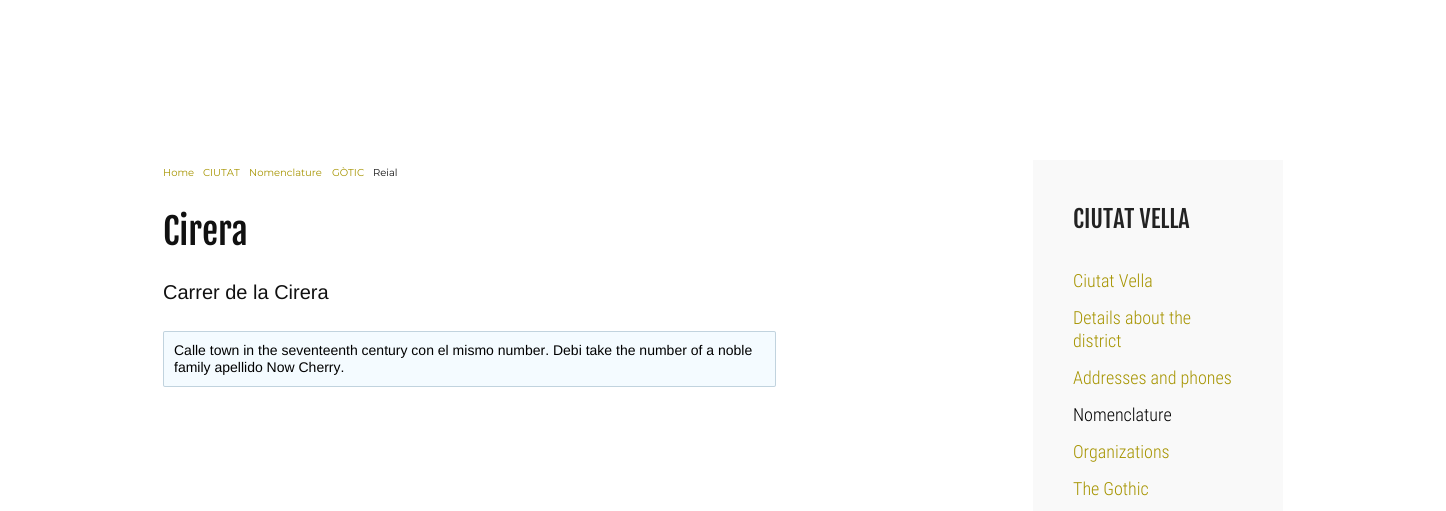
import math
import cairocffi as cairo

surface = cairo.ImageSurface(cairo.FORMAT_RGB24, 1446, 511)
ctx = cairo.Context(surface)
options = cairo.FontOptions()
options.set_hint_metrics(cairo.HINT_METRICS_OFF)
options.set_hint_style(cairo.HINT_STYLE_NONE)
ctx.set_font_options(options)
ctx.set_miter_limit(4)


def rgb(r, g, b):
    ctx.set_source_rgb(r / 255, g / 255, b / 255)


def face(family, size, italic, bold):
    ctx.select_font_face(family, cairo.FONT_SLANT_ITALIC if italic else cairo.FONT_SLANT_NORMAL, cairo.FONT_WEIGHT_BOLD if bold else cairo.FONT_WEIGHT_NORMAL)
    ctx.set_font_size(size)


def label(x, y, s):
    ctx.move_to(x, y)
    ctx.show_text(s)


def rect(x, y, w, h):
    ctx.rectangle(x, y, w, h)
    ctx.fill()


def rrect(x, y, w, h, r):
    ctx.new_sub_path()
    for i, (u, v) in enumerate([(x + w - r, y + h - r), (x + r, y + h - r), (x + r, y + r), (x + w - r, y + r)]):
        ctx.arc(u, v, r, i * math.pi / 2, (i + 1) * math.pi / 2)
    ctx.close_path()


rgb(255, 255, 255)
ctx.paint()
face('Montserrat Thin', 10, 0, 0)
rgb(166, 148, 0)
label(163, 176, 'Home')
label(203, 176, 'CIUTAT')
label(249, 176, 'Nomenclature')
label(332, 176, 'GÒTIC')
rgb(17, 17, 17)
label(373, 176, 'Reial')
face('Fjalla One', 36, 0, 0)
label(163, 245, 'Cirera')
face('Liberation Sans', 20, 0, 0)
label(163, 299, 'Carrer de la Cirera')
rgb(244, 251, 255)
rrect(163.5, 331.5, 612, 55, 1.5)
ctx.fill_preserve()
rgb(193, 211, 222)
ctx.set_line_width(1)
ctx.stroke()
face('Liberation Sans', 14, 0, 0)
rgb(0, 0, 0)
label(174, 355, 'Calle town in the seventeenth century con el mismo number. Debi take the number of a noble')
label(174, 372, 'family apellido Now Cherry.')
rgb(249, 249, 249)
rect(1033, 160, 250, 351)
face('Fjalla One', 24, 0, 0)
rgb(34, 34, 34)
label(1073, 228, 'CIUTAT VELLA')
face('Roboto Condensed Light', 18, 0, 0)
rgb(166, 148, 0)
label(1073, 287, 'Ciutat Vella')
label(1073, 324, 'Details about the')
label(1073, 347, 'district')
label(1073, 384, 'Addresses and phones')
rgb(0, 0, 0)
label(1073, 421, 'Nomenclature')
rgb(166, 148, 0)
label(1073, 458, 'Organizations')
label(1073, 495, 'The Gothic')
surface.write_to_png('render.png')
